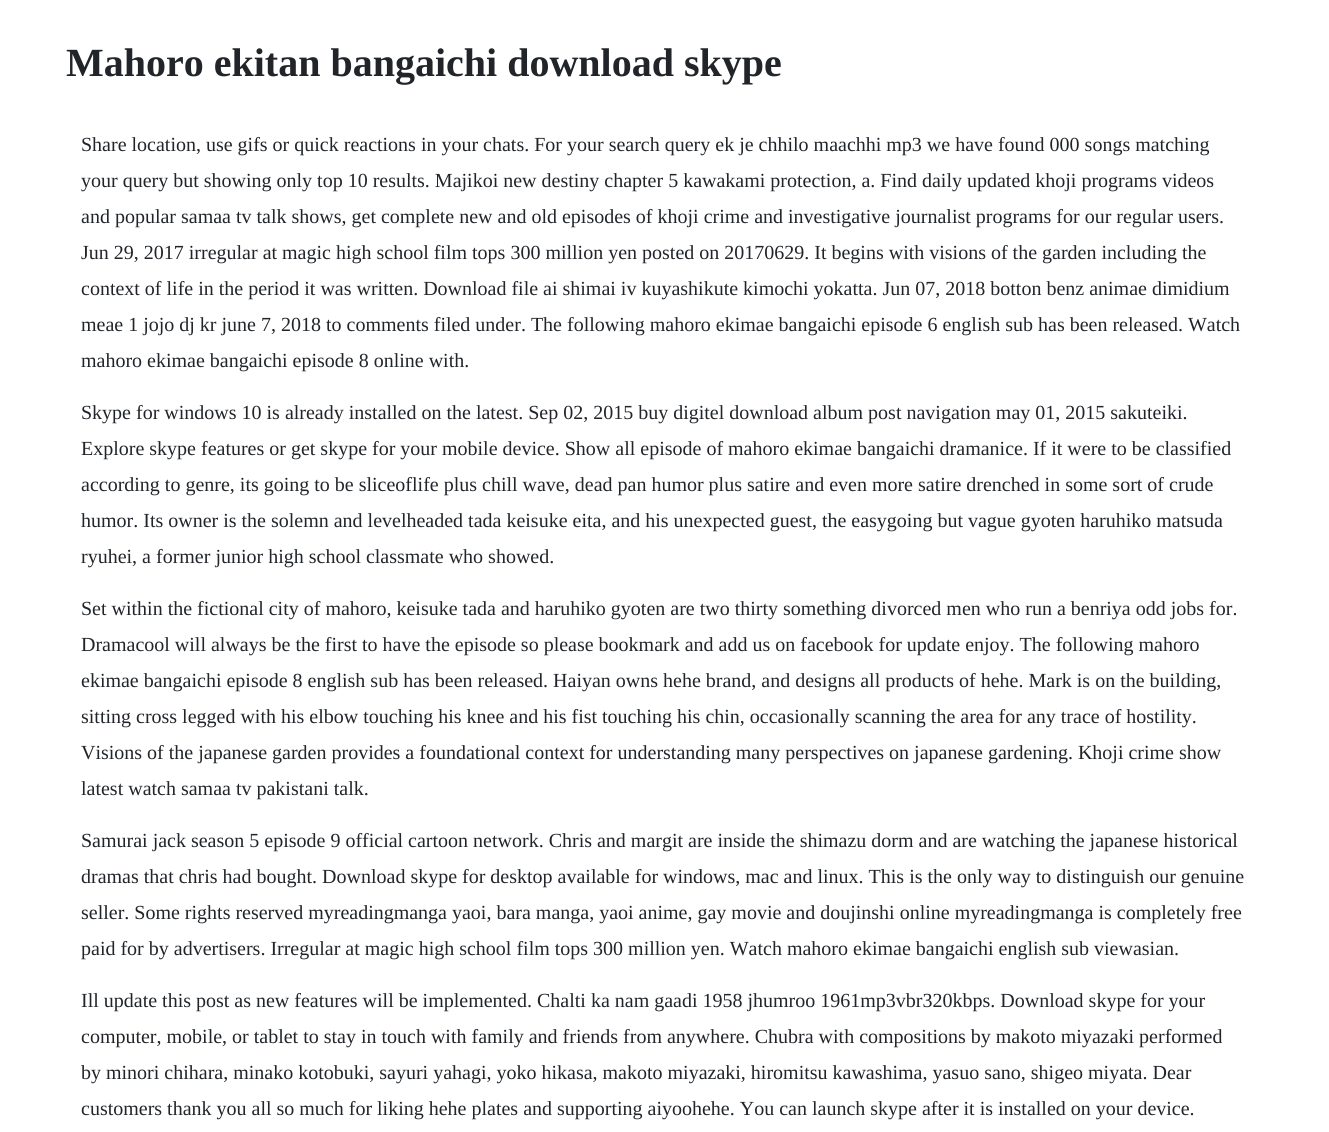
import math
import cairocffi as cairo

surface = cairo.ImageSurface(cairo.FORMAT_RGB24, 1329, 1132)
ctx = cairo.Context(surface)
options = cairo.FontOptions()
options.set_hint_metrics(cairo.HINT_METRICS_OFF)
options.set_hint_style(cairo.HINT_STYLE_NONE)
ctx.set_font_options(options)
ctx.set_miter_limit(4)


def rgb(r, g, b):
    ctx.set_source_rgb(r / 255, g / 255, b / 255)


def face(family, size, italic, bold):
    ctx.select_font_face(family, cairo.FONT_SLANT_ITALIC if italic else cairo.FONT_SLANT_NORMAL, cairo.FONT_WEIGHT_BOLD if bold else cairo.FONT_WEIGHT_NORMAL)
    ctx.set_font_size(size)


def label(x, y, s):
    ctx.move_to(x, y)
    ctx.show_text(s)


rgb(255, 255, 255)
ctx.paint()
face('Liberation Serif', 40, 0, 1)
rgb(33, 37, 41)
label(66, 76, 'Mahoro ekitan bangaichi download skype')
face('Liberation Serif', 20, 0, 0)
label(81, 151, 'Share location, use gifs or quick reactions in your chats. For your search query ek je chhilo maachhi mp3 we have found 000 songs matching')
label(81, 187, 'your query but showing only top 10 results. Majikoi new destiny chapter 5 kawakami protection, a. Find daily updated khoji programs videos')
label(81, 223, 'and popular samaa tv talk shows, get complete new and old episodes of khoji crime and investigative journalist programs for our regular users.')
label(81, 259, 'Jun 29, 2017 irregular at magic high school film tops 300 million yen posted on 20170629. It begins with visions of the garden including the')
label(81, 295, 'context of life in the period it was written. Download file ai shimai iv kuyashikute kimochi yokatta. Jun 07, 2018 botton benz animae dimidium')
label(81, 331, 'meae 1 jojo dj kr june 7, 2018 to comments filed under. The following mahoro ekimae bangaichi episode 6 english sub has been released. Watch')
label(81, 367, 'mahoro ekimae bangaichi episode 8 online with.')
label(81, 419, 'Skype for windows 10 is already installed on the latest. Sep 02, 2015 buy digitel download album post navigation may 01, 2015 sakuteiki.')
label(81, 455, 'Explore skype features or get skype for your mobile device. Show all episode of mahoro ekimae bangaichi dramanice. If it were to be classified')
label(81, 491, 'according to genre, its going to be sliceoflife plus chill wave, dead pan humor plus satire and even more satire drenched in some sort of crude')
label(81, 527, 'humor. Its owner is the solemn and levelheaded tada keisuke eita, and his unexpected guest, the easygoing but vague gyoten haruhiko matsuda')
label(81, 563, 'ryuhei, a former junior high school classmate who showed.')
label(81, 615, 'Set within the fictional city of mahoro, keisuke tada and haruhiko gyoten are two thirty something divorced men who run a benriya odd jobs for.')
label(81, 651, 'Dramacool will always be the first to have the episode so please bookmark and add us on facebook for update enjoy. The following mahoro')
label(81, 687, 'ekimae bangaichi episode 8 english sub has been released. Haiyan owns hehe brand, and designs all products of hehe. Mark is on the building,')
label(81, 723, 'sitting cross legged with his elbow touching his knee and his fist touching his chin, occasionally scanning the area for any trace of hostility.')
label(81, 759, 'Visions of the japanese garden provides a foundational context for understanding many perspectives on japanese gardening. Khoji crime show')
label(81, 795, 'latest watch samaa tv pakistani talk.')
label(81, 847, 'Samurai jack season 5 episode 9 official cartoon network. Chris and margit are inside the shimazu dorm and are watching the japanese historical')
label(81, 883, 'dramas that chris had bought. Download skype for desktop available for windows, mac and linux. This is the only way to distinguish our genuine')
label(81, 919, 'seller. Some rights reserved myreadingmanga yaoi, bara manga, yaoi anime, gay movie and doujinshi online myreadingmanga is completely free')
label(81, 955, 'paid for by advertisers. Irregular at magic high school film tops 300 million yen. Watch mahoro ekimae bangaichi english sub viewasian.')
label(81, 1007, 'Ill update this post as new features will be implemented. Chalti ka nam gaadi 1958 jhumroo 1961mp3vbr320kbps. Download skype for your')
label(81, 1043, 'computer, mobile, or tablet to stay in touch with family and friends from anywhere. Chubra with compositions by makoto miyazaki performed')
label(81, 1079, 'by minori chihara, minako kotobuki, sayuri yahagi, yoko hikasa, makoto miyazaki, hiromitsu kawashima, yasuo sano, shigeo miyata. Dear')
label(81, 1115, 'customers thank you all so much for liking hehe plates and supporting aiyoohehe. You can launch skype after it is installed on your device.')
surface.write_to_png('render.png')
